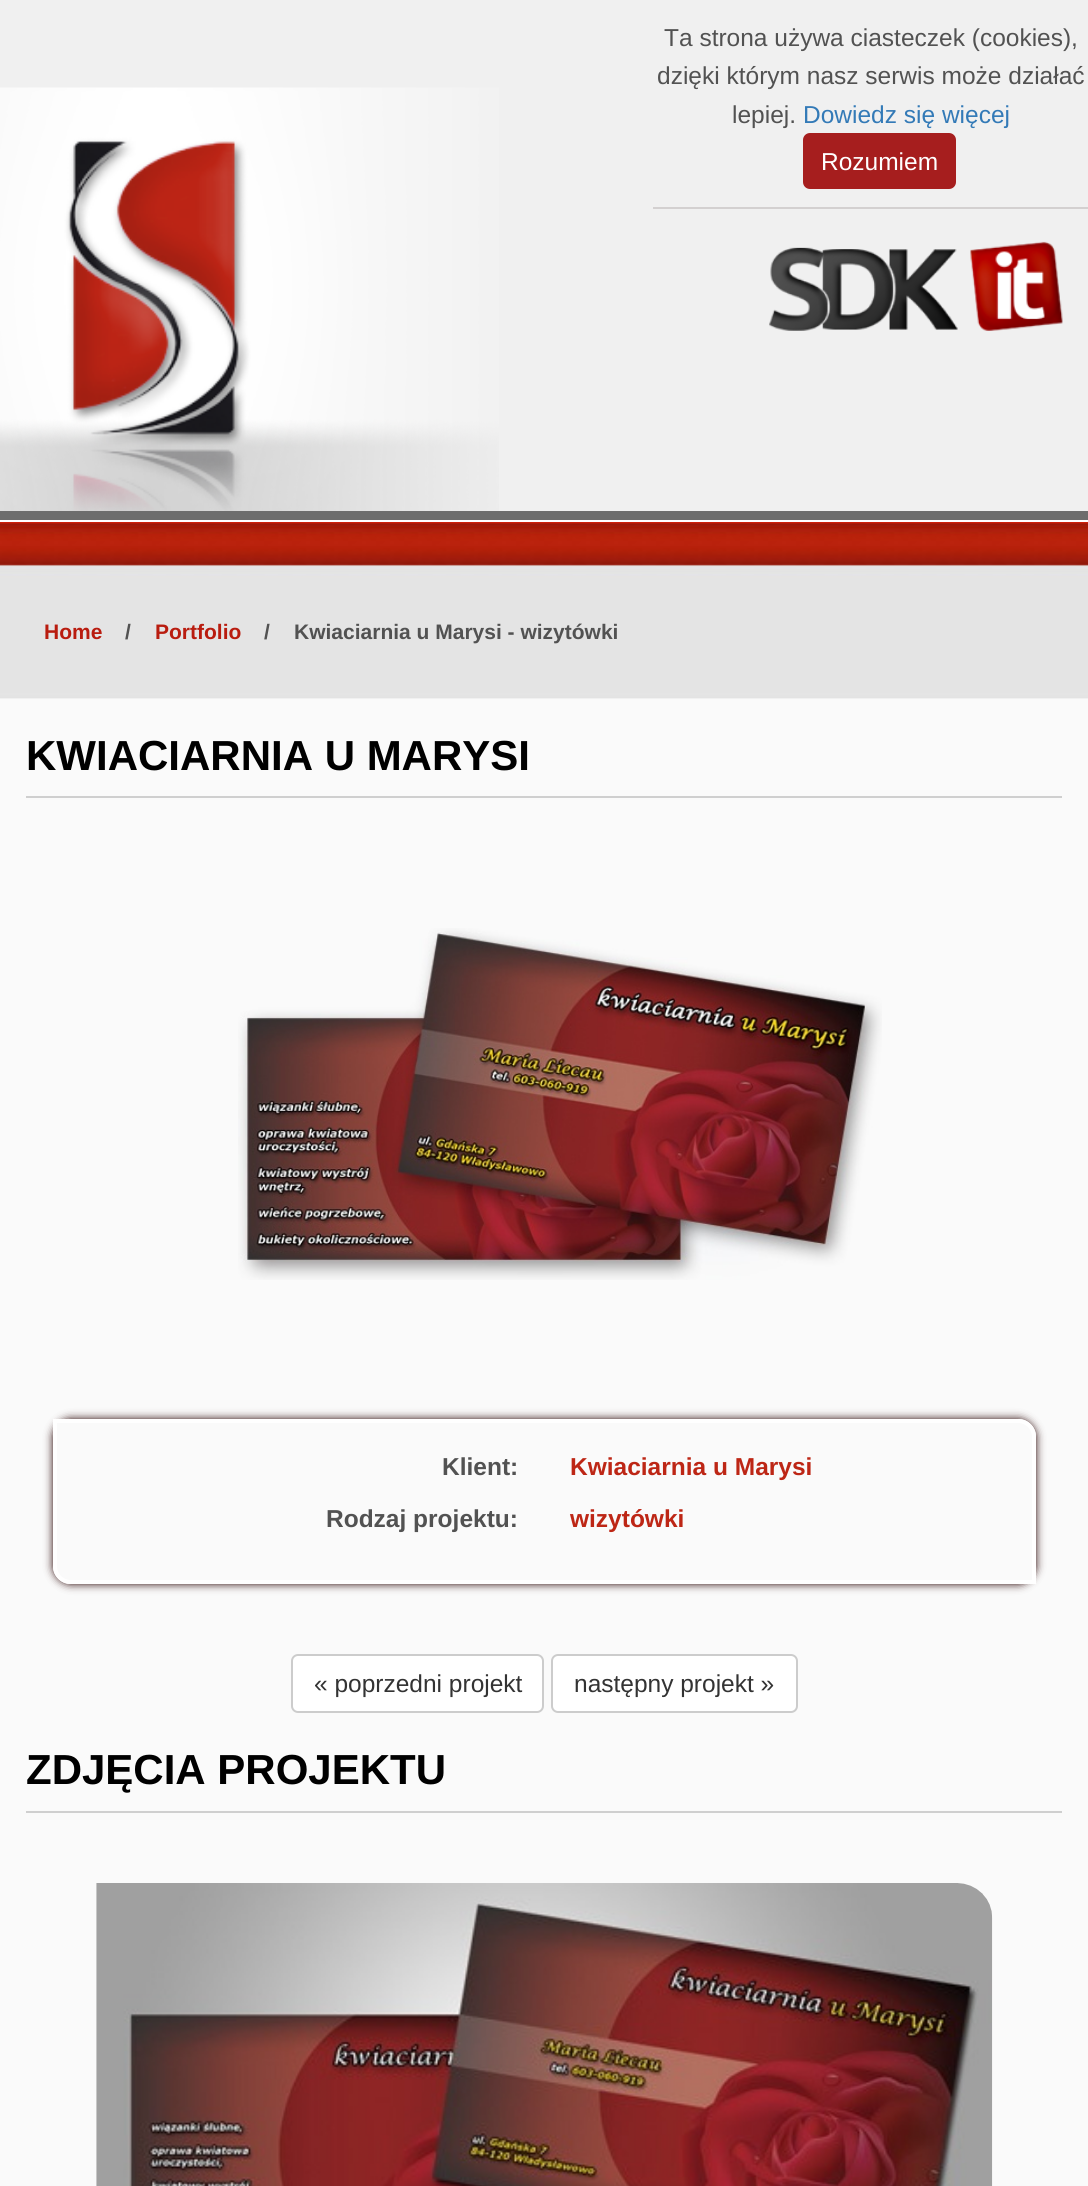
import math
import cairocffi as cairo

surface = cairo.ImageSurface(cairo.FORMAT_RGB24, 1088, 2186)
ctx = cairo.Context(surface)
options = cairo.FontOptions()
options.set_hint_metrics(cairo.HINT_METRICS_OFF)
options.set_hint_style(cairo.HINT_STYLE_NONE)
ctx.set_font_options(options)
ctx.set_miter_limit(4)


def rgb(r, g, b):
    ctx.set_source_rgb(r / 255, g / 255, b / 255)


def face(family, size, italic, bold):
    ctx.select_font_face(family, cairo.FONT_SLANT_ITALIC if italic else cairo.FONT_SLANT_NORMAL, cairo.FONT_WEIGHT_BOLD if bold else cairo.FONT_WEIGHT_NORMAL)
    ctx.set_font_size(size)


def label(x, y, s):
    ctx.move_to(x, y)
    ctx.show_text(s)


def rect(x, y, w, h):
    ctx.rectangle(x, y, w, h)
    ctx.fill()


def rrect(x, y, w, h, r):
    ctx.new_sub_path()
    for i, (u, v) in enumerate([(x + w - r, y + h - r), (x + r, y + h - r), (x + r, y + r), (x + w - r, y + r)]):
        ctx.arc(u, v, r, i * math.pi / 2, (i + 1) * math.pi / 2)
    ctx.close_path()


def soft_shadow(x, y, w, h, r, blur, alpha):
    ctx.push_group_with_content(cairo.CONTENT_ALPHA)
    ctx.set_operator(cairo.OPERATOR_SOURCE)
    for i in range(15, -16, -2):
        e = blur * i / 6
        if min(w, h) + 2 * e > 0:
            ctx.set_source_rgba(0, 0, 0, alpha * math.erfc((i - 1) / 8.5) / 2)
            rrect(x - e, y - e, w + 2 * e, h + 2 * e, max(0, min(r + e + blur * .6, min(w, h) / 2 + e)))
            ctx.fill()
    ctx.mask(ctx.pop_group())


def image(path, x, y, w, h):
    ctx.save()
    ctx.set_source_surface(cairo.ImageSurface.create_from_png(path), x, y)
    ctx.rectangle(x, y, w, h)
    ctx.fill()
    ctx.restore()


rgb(240, 240, 240)
ctx.paint()
rgb(211, 208, 208)
rect(653, 207, 435, 2)
face('Liberation Sans', 24.5, 0, 0)
rgb(82, 82, 82)
label(664, 46, 'Ta strona używa ciasteczek (cookies),')
label(657, 84, 'dzięki którym nasz serwis może działać')
label(732, 123, 'lepiej.')
rgb(51, 122, 183)
label(803, 123, 'Dowiedz się więcej')
rgb(166, 30, 30)
rrect(803, 133, 153, 56, 7)
ctx.fill()
rgb(255, 255, 255)
label(821, 170, 'Rozumiem')
rgb(109, 109, 109)
rect(0, 511, 1088, 9)
image('image0.png', 0, 87, 499, 424)
image('image1.png', 769, 241, 294, 90)
rgb(250, 250, 250)
rect(0, 698, 1088, 1488)
image('image2.png', 0, 522, 1088, 177)
rgb(255, 255, 255)
rect(0, 520, 1088, 2)
face('Liberation Sans', 21, 0, 1)
rgb(185, 28, 15)
label(44, 639, 'Home')
rgb(82, 82, 82)
label(125, 639, '/')
rgb(185, 28, 15)
label(155, 639, 'Portfolio')
rgb(82, 82, 82)
label(264, 639, '/')
label(294, 639, 'Kwiaciarnia u Marysi - wizytówki')
face('Liberation Sans', 42, 0, 1)
rgb(0, 0, 0)
label(26, 770, 'KWIACIARNIA U MARYSI')
rgb(207, 207, 207)
rect(26, 796, 1036, 2)
image('image3.png', 238, 928, 644, 352)
ctx.save()
ctx.set_fill_rule(cairo.FILL_RULE_EVEN_ODD)
ctx.new_path()
ctx.move_to(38, 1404)
ctx.line_to(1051, 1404)
ctx.line_to(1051, 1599)
ctx.line_to(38, 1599)
ctx.close_path()
ctx.move_to(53, 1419)
ctx.line_to(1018, 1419)
ctx.curve_to(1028, 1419, 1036, 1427, 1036, 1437)
ctx.line_to(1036, 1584)
ctx.line_to(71, 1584)
ctx.curve_to(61, 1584, 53, 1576, 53, 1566)
ctx.close_path()
ctx.clip()
rgb(37, 0, 0)
soft_shadow(53, 1419, 983, 165, 18, 4.5, 1)
ctx.restore()
ctx.new_path()
ctx.move_to(55, 1421)
ctx.line_to(1018, 1421)
ctx.curve_to(1027, 1421, 1034, 1428, 1034, 1437)
ctx.line_to(1034, 1582)
ctx.line_to(71, 1582)
ctx.curve_to(62, 1582, 55, 1575, 55, 1566)
ctx.close_path()
rgb(255, 255, 255)
ctx.set_line_width(4)
ctx.stroke()
face('Liberation Sans', 24.5, 0, 1)
rgb(82, 82, 82)
label(442, 1475, 'Klient:')
label(326, 1527, 'Rodzaj projektu:')
rgb(189, 38, 21)
label(570, 1475, 'Kwiaciarnia u Marysi')
label(570, 1527, 'wizytówki')
rgb(255, 255, 255)
rrect(292, 1655, 251, 57, 6)
ctx.fill_preserve()
rgb(204, 204, 204)
ctx.set_line_width(2)
ctx.stroke()
face('Liberation Sans', 24.5, 0, 0)
rgb(51, 51, 51)
label(314, 1692, '« poprzedni projekt')
rgb(255, 255, 255)
rrect(552, 1655, 245, 57, 6)
ctx.fill_preserve()
rgb(204, 204, 204)
ctx.stroke()
rgb(51, 51, 51)
label(574, 1692, 'następny projekt »')
face('Liberation Sans', 42, 0, 1)
rgb(0, 0, 0)
label(26, 1784, 'ZDJĘCIA PROJEKTU')
rgb(207, 207, 207)
rect(26, 1811, 1036, 2)
image('image4.png', 96, 1883, 897, 303)
surface.write_to_png('render.png')
